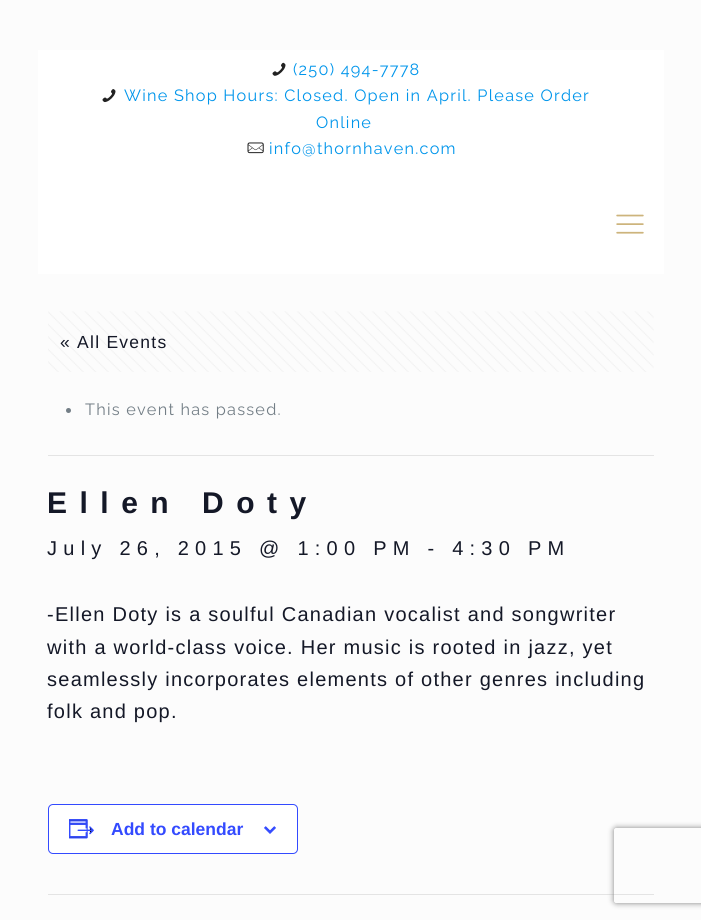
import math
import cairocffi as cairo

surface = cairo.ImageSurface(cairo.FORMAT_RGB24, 701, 920)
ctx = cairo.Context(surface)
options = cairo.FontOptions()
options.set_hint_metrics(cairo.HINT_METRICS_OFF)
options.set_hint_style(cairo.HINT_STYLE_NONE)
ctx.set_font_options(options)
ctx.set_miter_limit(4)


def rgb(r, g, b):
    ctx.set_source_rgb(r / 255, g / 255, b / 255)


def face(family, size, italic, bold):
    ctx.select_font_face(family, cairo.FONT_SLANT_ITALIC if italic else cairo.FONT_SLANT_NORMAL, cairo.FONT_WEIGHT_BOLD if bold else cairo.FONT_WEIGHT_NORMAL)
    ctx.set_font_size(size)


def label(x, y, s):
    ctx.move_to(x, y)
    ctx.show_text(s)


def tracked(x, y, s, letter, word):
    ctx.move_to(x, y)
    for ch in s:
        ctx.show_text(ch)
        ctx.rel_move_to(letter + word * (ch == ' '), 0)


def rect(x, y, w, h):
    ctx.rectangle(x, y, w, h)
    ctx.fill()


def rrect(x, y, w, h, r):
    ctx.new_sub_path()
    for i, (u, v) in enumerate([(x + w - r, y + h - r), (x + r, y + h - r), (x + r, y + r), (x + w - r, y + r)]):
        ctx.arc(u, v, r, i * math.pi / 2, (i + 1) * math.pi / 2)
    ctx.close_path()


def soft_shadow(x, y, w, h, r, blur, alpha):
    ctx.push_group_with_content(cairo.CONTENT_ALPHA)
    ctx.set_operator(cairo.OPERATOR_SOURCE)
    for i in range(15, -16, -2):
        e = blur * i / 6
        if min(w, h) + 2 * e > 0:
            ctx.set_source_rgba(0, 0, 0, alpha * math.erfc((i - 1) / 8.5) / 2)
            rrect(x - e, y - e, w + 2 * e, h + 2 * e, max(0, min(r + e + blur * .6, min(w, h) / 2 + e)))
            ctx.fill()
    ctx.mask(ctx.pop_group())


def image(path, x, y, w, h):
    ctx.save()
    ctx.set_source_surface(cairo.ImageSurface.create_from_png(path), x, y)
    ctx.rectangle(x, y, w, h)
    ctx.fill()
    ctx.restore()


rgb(252, 252, 252)
ctx.paint()
rgb(255, 255, 255)
rect(38, 50, 626, 224)
image('image0.png', 272, 62, 14, 14)
face('Raleway', 16.25, 0, 0)
rgb(0, 149, 235)
tracked(293, 75, '(250) 494-7778', 1.25, 0)
image('image1.png', 102, 89, 14, 14)
tracked(124, 101, 'Wine Shop Hours: Closed. Open in April. Please Order', 1.25, 0)
tracked(316, 128, 'Online', 1.25, 0)
image('image2.png', 247, 142, 17, 12)
tracked(269, 154, 'info@thornhaven.com', 1.25, 0)
image('image3.png', 616, 214, 28, 20)
image('image4.png', 48, 311, 606, 61)
face('Liberation Sans', 17.5, 0, 0)
rgb(20, 24, 39)
tracked(60, 348, '« All Events', 1.25, 0)
rgb(228, 228, 228)
rect(48, 455, 606, 1)
rgb(115, 126, 134)
ctx.new_path()
ctx.arc(68.5, 410.5, 2.5, 0, 2 * math.pi)
ctx.fill()
face('Raleway', 16.25, 0, 0)
tracked(85, 415, 'This event has passed.', 1.25, 0)
face('Liberation Sans', 30, 0, 1)
rgb(20, 24, 39)
tracked(47, 513, 'Ellen Doty', 12.5, 0)
face('Liberation Sans', 20, 0, 0)
tracked(47, 555, 'July 26, 2015 @ 1:00 PM - 4:30 PM', 6.25, 0)
tracked(47, 621, '-Ellen Doty is a soulful Canadian vocalist and songwriter', 1.25, 0)
tracked(47, 654, 'with a world-class voice. Her music is rooted in jazz, yet', 1.25, 0)
tracked(47, 686, 'seamlessly incorporates elements of other genres including', 1.25, 0)
tracked(47, 718, 'folk and pop.', 1.25, 0)
rgb(255, 255, 255)
rrect(48.5, 804.5, 249, 49, 4.5)
ctx.fill_preserve()
rgb(51, 74, 255)
ctx.set_line_width(1)
ctx.stroke()
image('image5.png', 69, 819, 25, 20)
face('Liberation Sans', 17.5, 0, 1)
label(111, 835, 'Add to calendar')
image('image6.png', 264, 826, 12, 8)
rgb(228, 228, 228)
rect(48, 894, 606, 1)
ctx.save()
ctx.set_fill_rule(cairo.FILL_RULE_EVEN_ODD)
ctx.new_path()
ctx.move_to(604, 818)
ctx.line_to(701, 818)
ctx.line_to(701, 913)
ctx.line_to(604, 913)
ctx.close_path()
ctx.move_to(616.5, 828)
ctx.line_to(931.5, 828)
ctx.curve_to(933, 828, 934, 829, 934, 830.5)
ctx.line_to(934, 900.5)
ctx.curve_to(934, 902, 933, 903, 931.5, 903)
ctx.line_to(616.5, 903)
ctx.curve_to(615, 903, 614, 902, 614, 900.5)
ctx.line_to(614, 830.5)
ctx.curve_to(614, 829, 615, 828, 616.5, 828)
ctx.close_path()
ctx.clip()
rgb(128, 128, 128)
soft_shadow(614, 828, 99, 75, 2.5, 3, 1)
ctx.restore()
surface.write_to_png('render.png')
